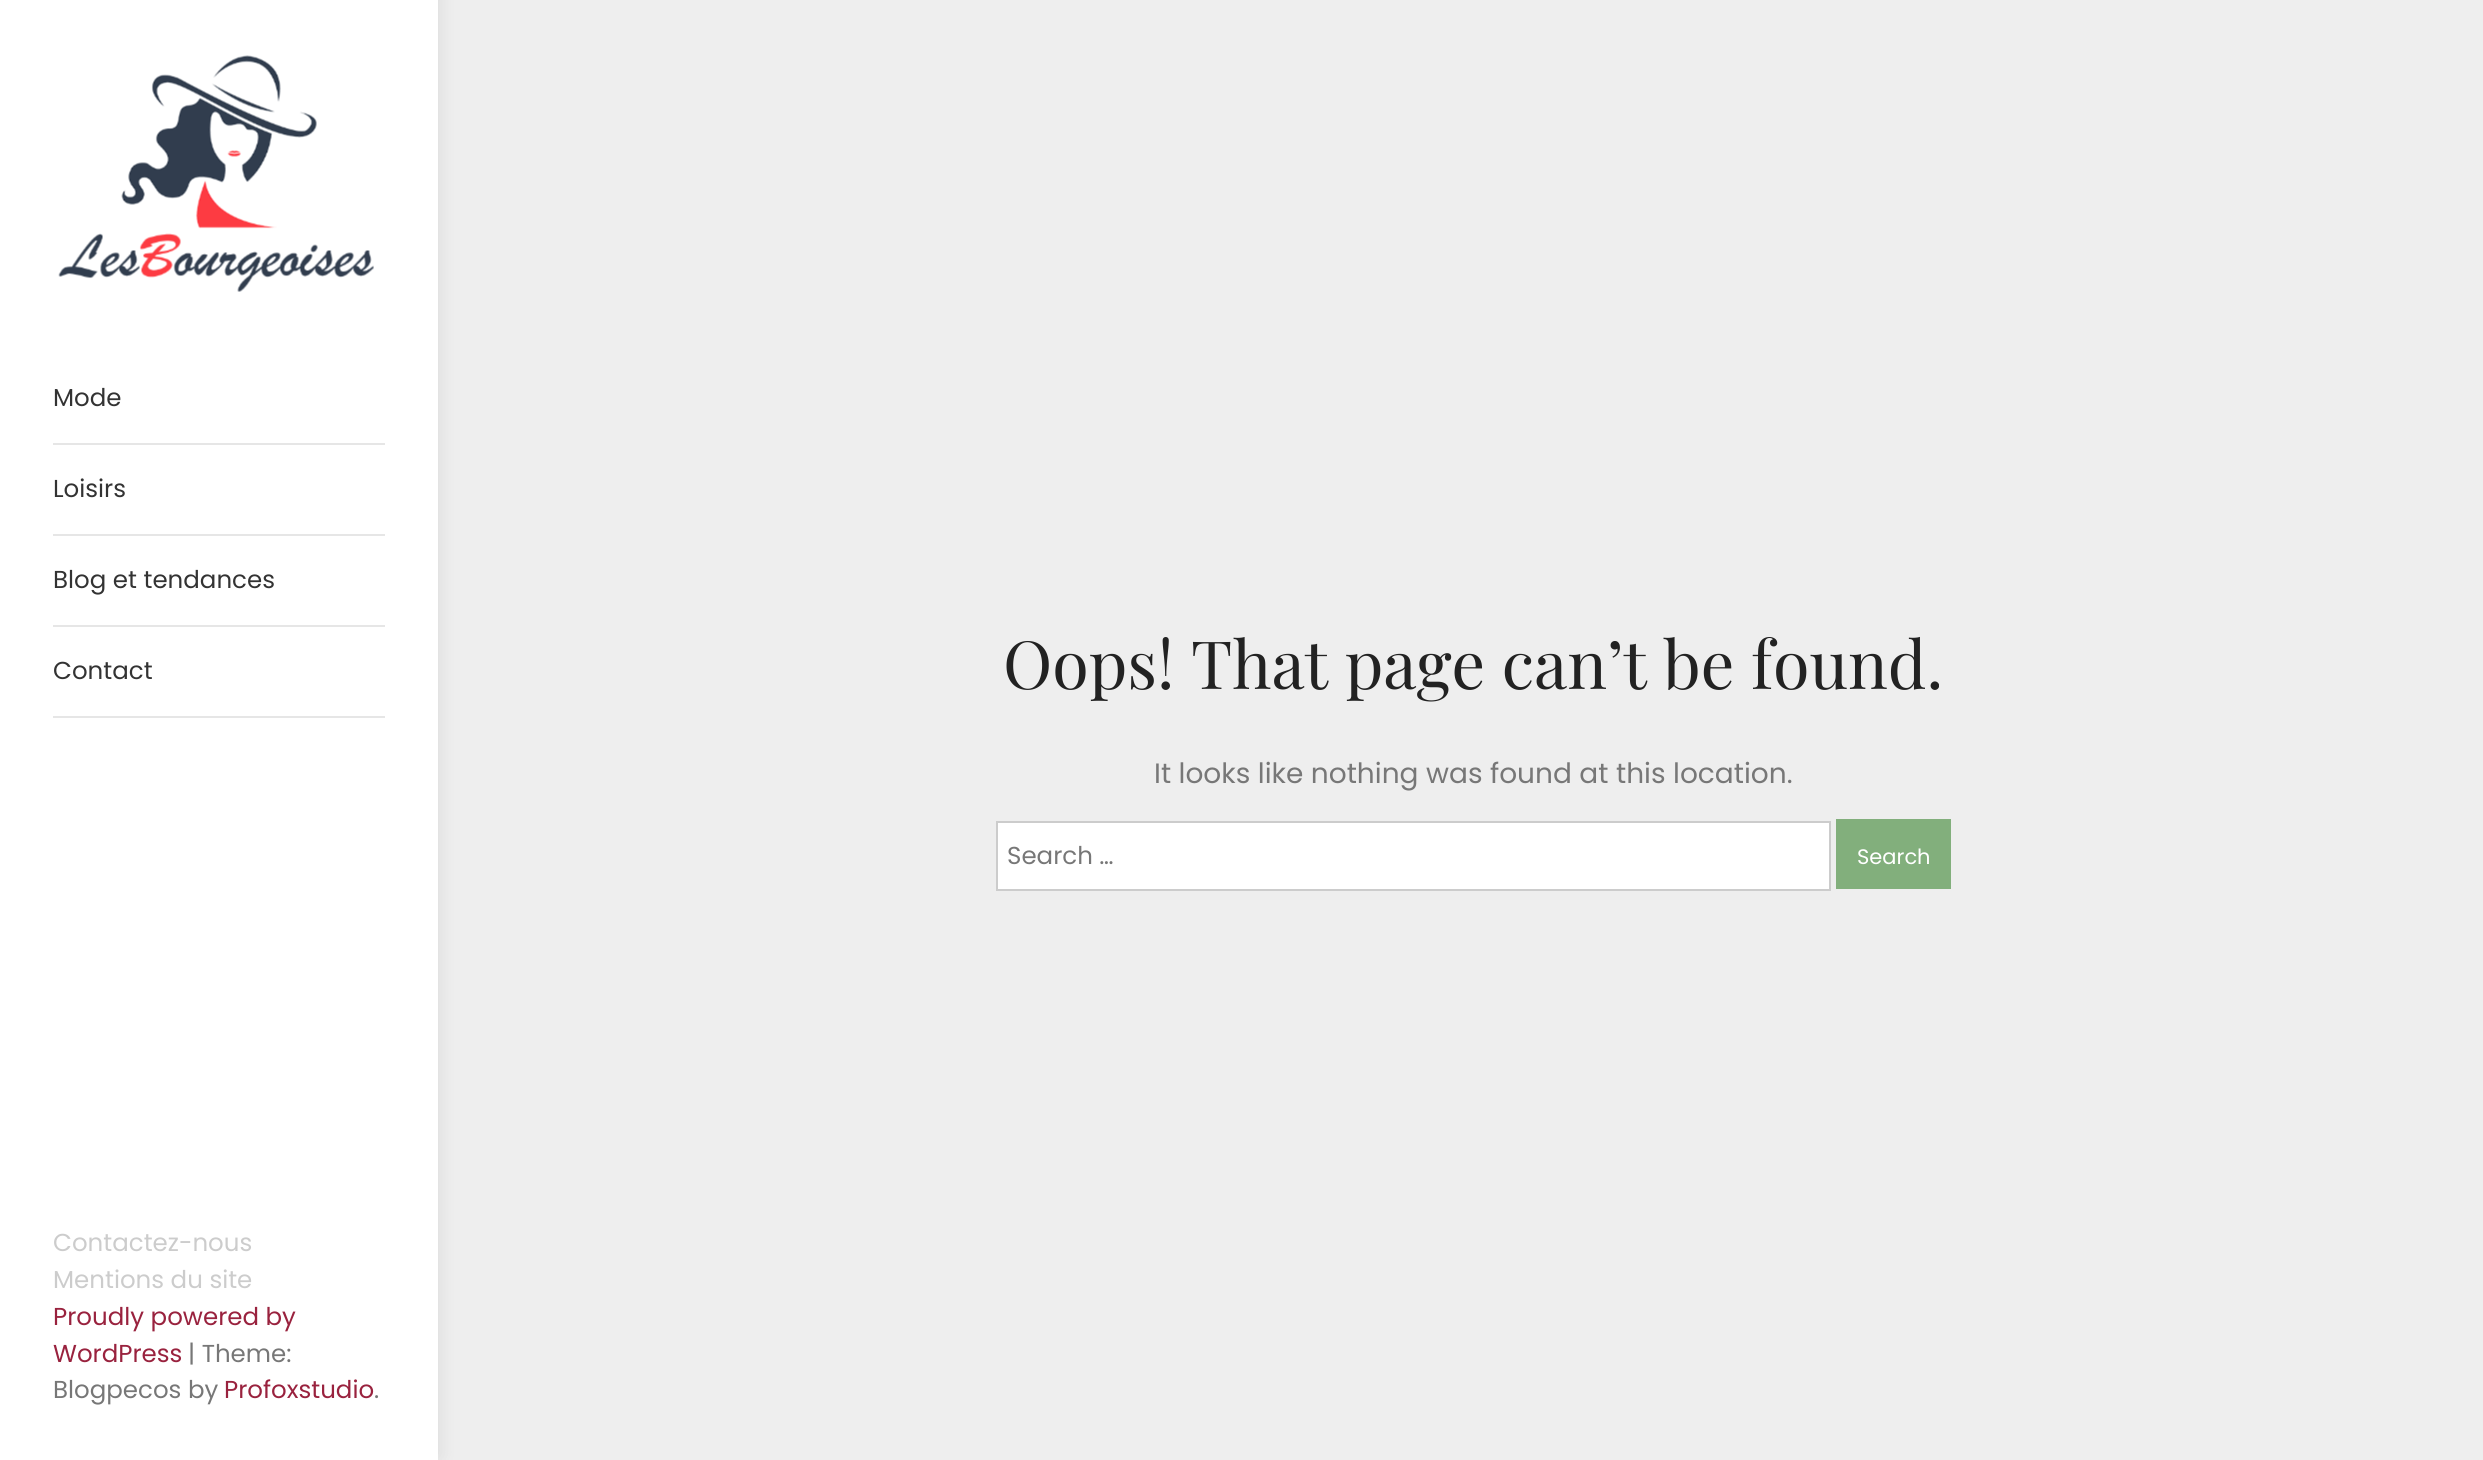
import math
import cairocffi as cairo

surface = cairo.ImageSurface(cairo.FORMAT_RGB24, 2483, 1460)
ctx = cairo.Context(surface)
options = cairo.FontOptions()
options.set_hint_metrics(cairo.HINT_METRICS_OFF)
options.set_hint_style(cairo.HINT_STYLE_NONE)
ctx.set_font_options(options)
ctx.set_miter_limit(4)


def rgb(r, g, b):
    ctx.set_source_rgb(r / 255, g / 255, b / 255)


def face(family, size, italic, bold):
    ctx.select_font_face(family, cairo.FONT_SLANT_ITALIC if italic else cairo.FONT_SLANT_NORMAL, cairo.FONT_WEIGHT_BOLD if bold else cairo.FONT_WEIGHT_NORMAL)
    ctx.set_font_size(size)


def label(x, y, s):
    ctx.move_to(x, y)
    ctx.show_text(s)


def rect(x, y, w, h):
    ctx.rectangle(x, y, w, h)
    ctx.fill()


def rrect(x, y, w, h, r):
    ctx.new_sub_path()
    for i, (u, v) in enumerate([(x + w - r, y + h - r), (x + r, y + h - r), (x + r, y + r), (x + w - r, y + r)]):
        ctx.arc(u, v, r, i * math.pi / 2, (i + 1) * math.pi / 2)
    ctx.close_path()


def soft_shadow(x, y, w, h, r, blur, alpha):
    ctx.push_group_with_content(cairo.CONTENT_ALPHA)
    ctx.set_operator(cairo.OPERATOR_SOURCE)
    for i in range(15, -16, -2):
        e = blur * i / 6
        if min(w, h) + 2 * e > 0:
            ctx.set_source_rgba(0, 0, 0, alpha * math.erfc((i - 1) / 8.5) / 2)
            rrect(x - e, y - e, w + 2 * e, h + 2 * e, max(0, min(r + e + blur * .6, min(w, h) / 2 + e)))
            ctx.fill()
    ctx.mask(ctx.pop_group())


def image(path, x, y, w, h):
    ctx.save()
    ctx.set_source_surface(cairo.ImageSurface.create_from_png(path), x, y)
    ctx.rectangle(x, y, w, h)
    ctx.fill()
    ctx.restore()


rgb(238, 238, 238)
ctx.paint()
rgb(0, 0, 0)
soft_shadow(0, -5, 438, 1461, 0, 9, 0.1)
rgb(255, 255, 255)
rect(0, 0, 438, 1460)
image('image0.png', 58, 55, 316, 237)
rgb(230, 230, 230)
rect(53, 443, 332, 2)
face('Poppins', 24.5, 0, 0)
rgb(51, 51, 51)
label(53, 406, 'Mode')
rgb(230, 230, 230)
rect(53, 534, 332, 2)
rgb(51, 51, 51)
label(53, 497, 'Loisirs')
rgb(230, 230, 230)
rect(53, 625, 332, 2)
rgb(51, 51, 51)
label(53, 588, 'Blog et tendances')
rgb(230, 230, 230)
rect(53, 716, 332, 2)
rgb(51, 51, 51)
label(53, 679, 'Contact')
rgb(204, 204, 204)
label(53, 1251, 'Contactez-nous')
label(53, 1288, 'Mentions du site')
rgb(153, 34, 62)
label(53, 1325, 'Proudly powered by')
label(53, 1362, 'WordPress')
rgb(119, 119, 119)
label(188, 1362, '| Theme:')
label(53, 1398, 'Blogpecos by')
rgb(153, 34, 62)
label(224, 1398, 'Profoxstudio')
rgb(119, 119, 119)
label(374, 1398, '.')
face('Playfair Display', 66.5, 0, 0)
rgb(34, 34, 34)
label(1003, 689, 'Oops! That page can’t be found.')
face('Poppins', 28, 0, 0)
rgb(119, 119, 119)
label(1154, 783, 'It looks like nothing was found at this location.')
rgb(255, 255, 255)
ctx.rectangle(997, 822, 833, 68)
ctx.fill_preserve()
rgb(204, 204, 204)
ctx.stroke()
face('Poppins', 24.5, 0, 0)
rgb(119, 119, 119)
label(1007, 864, 'Search …')
rgb(130, 175, 124)
rect(1836, 819, 115, 70)
face('Poppins', 21, 0, 0)
rgb(255, 255, 255)
label(1857, 864, 'Search')
surface.write_to_png('render.png')
